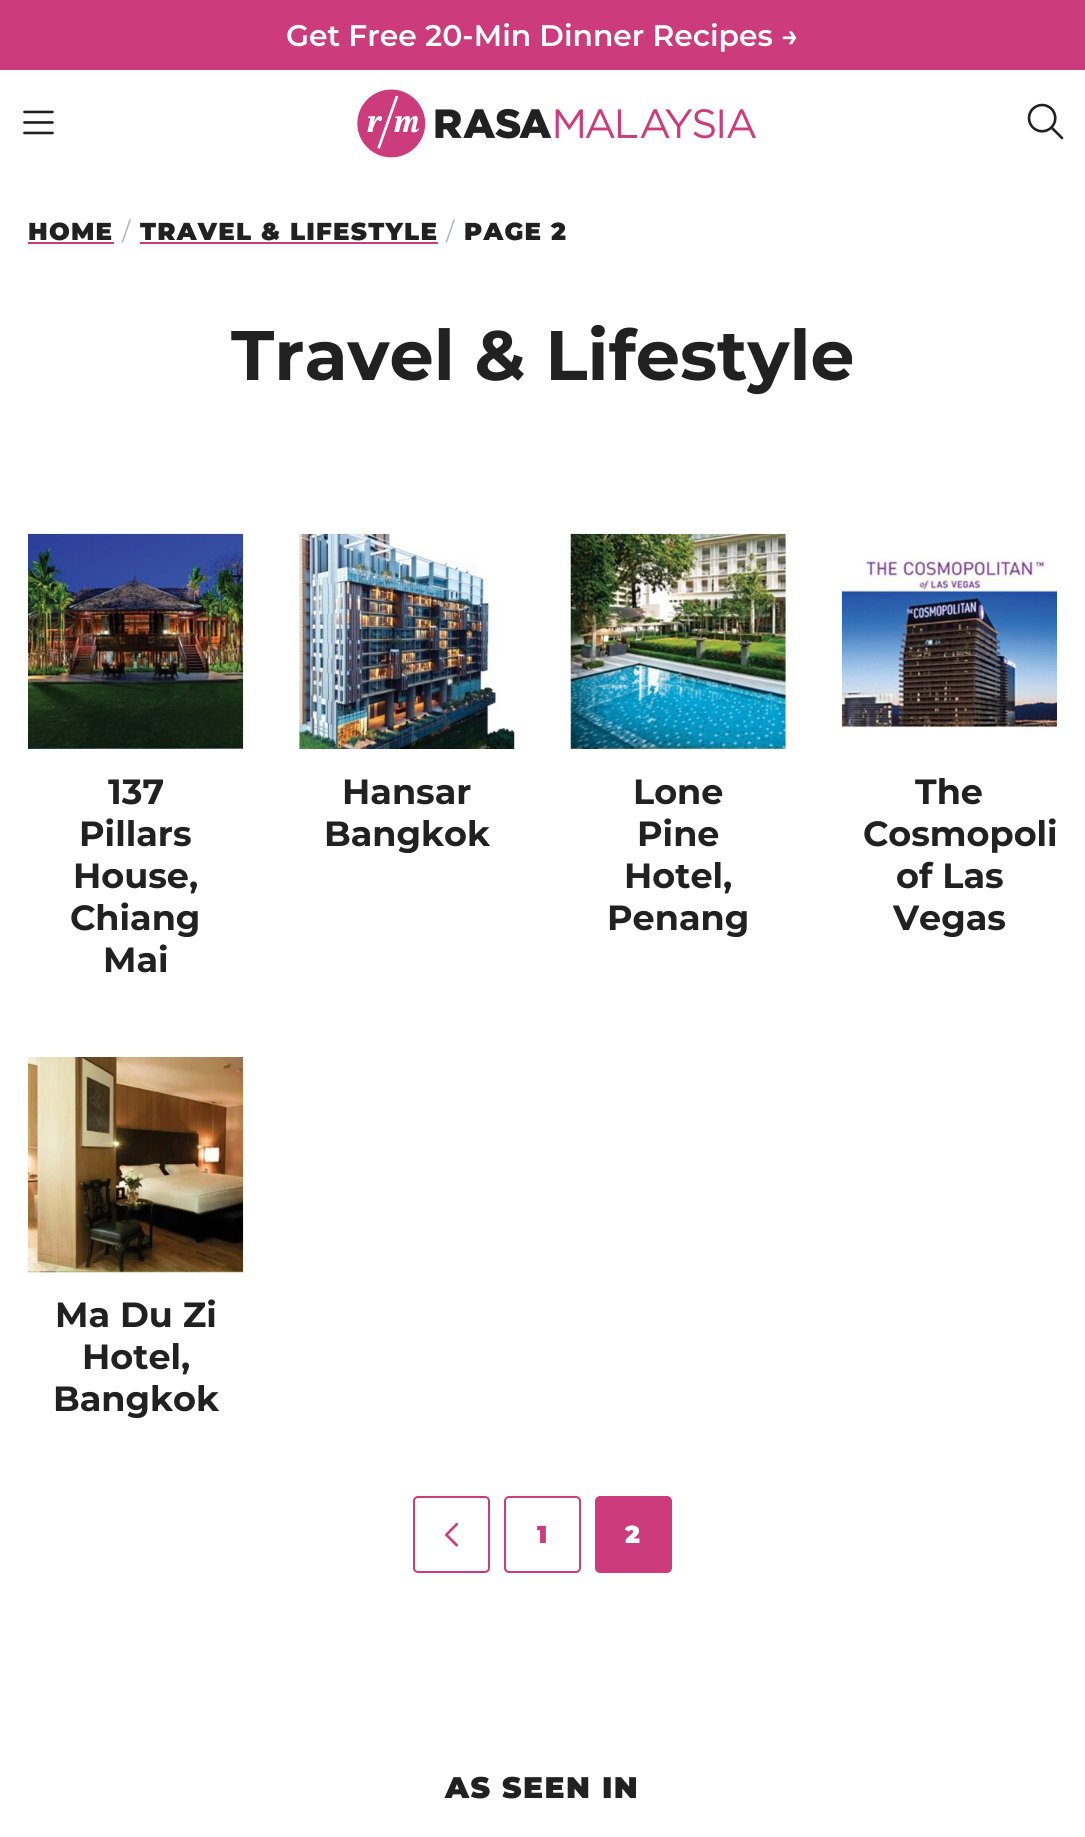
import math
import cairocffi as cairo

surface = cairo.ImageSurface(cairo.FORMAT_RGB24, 1085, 1837)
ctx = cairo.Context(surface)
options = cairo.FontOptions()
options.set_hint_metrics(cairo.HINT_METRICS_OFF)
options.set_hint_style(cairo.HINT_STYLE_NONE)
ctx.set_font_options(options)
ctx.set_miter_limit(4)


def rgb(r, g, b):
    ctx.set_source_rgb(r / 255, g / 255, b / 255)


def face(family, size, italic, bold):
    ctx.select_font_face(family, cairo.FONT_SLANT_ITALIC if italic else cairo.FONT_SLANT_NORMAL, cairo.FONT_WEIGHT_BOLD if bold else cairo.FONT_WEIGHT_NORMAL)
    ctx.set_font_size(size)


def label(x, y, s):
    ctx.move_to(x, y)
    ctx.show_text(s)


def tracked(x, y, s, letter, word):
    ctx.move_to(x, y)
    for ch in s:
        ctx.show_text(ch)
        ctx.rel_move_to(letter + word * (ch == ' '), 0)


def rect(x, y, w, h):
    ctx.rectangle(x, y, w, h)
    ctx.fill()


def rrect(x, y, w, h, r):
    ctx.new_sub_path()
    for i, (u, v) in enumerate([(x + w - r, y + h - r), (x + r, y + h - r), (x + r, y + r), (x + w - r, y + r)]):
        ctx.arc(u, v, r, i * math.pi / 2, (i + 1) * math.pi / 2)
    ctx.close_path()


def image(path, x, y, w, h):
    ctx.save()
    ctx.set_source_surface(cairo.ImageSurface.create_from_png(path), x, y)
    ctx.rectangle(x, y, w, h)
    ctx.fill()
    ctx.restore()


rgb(255, 255, 255)
ctx.paint()
rgb(204, 59, 123)
rect(0, 0, 1085, 70)
face('Montserrat SemiBold', 29.75, 0, 0)
rgb(255, 255, 255)
label(286, 46, 'Get Free 20-Min Dinner Recipes →')
image('image0.png', 23, 110, 31, 25)
image('image1.png', 357, 89, 399, 69)
image('image2.png', 1027, 103, 37, 37)
face('Montserrat Black', 24.5, 0, 0)
rgb(33, 33, 33)
tracked(28, 240, 'HOME', 1.25, 0)
rgb(204, 59, 123)
rect(28, 242, 86, 2)
face('Montserrat', 24.5, 0, 0)
rgb(173, 181, 189)
tracked(122, 240, '/', 1.25, 0)
face('Montserrat Black', 24.5, 0, 0)
rgb(33, 33, 33)
tracked(140, 240, 'TRAVEL & LIFESTYLE', 1.25, 0)
rgb(204, 59, 123)
rect(140, 242, 298, 2)
face('Montserrat', 24.5, 0, 0)
rgb(173, 181, 189)
tracked(446, 240, '/', 1.25, 0)
face('Montserrat Black', 24.5, 0, 0)
rgb(33, 33, 33)
tracked(464, 240, 'PAGE 2', 1.25, 0)
face('Montserrat', 70, 0, 1)
label(231, 380, 'Travel & Lifestyle')
image('image3.png', 28, 533, 216, 216)
face('Montserrat', 35, 0, 1)
label(108, 804, '137')
label(79, 846, 'Pillars')
label(73, 888, 'House,')
label(70, 930, 'Chiang')
label(103, 972, 'Mai')
image('image4.png', 299, 533, 216, 216)
label(342, 804, 'Hansar')
label(324, 846, 'Bangkok')
image('image5.png', 570, 533, 216, 216)
label(633, 804, 'Lone')
label(637, 846, 'Pine')
label(624, 888, 'Hotel,')
label(607, 930, 'Penang')
image('image6.png', 841, 558, 216, 175)
label(915, 804, 'The')
label(863, 846, 'Cosmopoli')
label(896, 888, 'of Las')
label(893, 930, 'Vegas')
image('image7.png', 28, 1057, 216, 216)
label(55, 1327, 'Ma Du Zi')
label(82, 1369, 'Hotel,')
label(53, 1411, 'Bangkok')
rrect(414, 1497, 75, 75, 4)
rgb(204, 59, 123)
ctx.stroke()
image('image8.png', 444, 1522, 14, 25)
rrect(505, 1497, 75, 75, 4)
ctx.stroke()
face('Montserrat Black', 24.5, 0, 0)
tracked(537, 1543, '1', 1.25, 0)
rrect(596, 1497, 75, 75, 4)
ctx.fill_preserve()
ctx.stroke()
rgb(255, 255, 255)
tracked(625, 1543, '2', 1.25, 0)
face('Montserrat Black', 29.75, 0, 0)
rgb(33, 33, 33)
tracked(445, 1798, 'AS SEEN IN', 1.5, 0)
surface.write_to_png('render.png')
